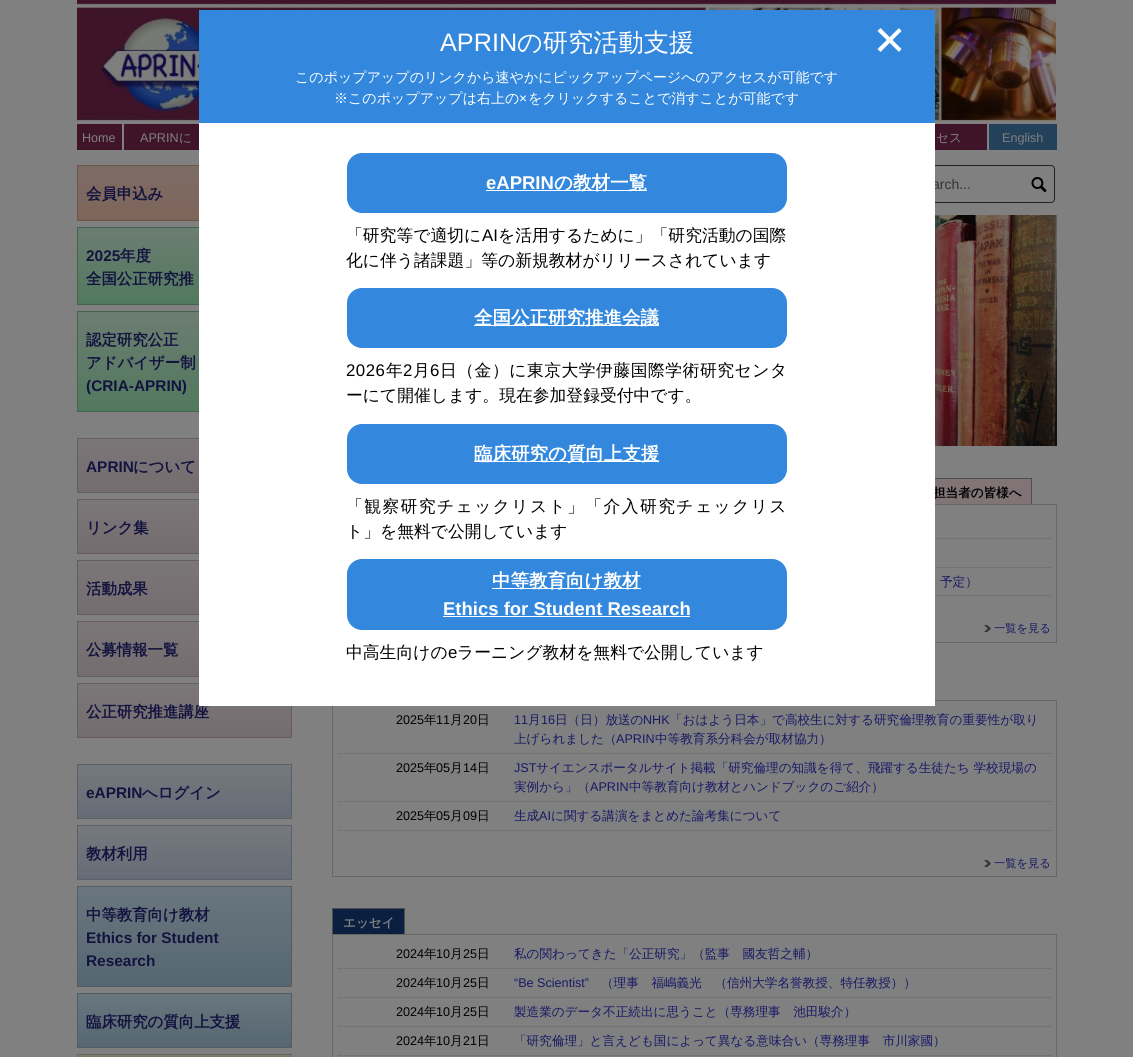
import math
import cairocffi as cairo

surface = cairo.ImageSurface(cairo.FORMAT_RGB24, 1133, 1057)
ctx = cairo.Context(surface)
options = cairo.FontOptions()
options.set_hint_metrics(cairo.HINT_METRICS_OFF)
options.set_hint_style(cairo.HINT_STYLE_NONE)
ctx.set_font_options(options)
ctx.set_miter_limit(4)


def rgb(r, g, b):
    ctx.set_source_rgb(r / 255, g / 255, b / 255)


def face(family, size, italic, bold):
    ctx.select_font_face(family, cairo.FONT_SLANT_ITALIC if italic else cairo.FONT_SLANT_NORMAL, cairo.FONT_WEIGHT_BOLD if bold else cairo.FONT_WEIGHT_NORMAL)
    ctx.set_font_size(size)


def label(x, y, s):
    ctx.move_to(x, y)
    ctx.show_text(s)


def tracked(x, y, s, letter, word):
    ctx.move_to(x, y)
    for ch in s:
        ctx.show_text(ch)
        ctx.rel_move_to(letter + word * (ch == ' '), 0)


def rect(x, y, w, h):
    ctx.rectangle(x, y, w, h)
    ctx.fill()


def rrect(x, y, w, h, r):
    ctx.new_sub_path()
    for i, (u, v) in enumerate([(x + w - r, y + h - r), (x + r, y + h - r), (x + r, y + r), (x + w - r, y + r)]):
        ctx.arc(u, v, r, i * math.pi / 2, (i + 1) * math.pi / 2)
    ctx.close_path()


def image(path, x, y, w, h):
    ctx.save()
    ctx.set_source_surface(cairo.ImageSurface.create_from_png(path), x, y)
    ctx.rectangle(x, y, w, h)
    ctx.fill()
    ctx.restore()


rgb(128, 128, 128)
ctx.paint()
gradient = cairo.LinearGradient(185, 166, 185, 220)
gradient.add_color_stop_rgba(0, 0.49, 0.427, 0.404, 1)
gradient.add_color_stop_rgba(1, 0.498, 0.392, 0.349, 1)
ctx.set_source(gradient)
rect(78, 166, 121, 54)
ctx.rectangle(77.5, 165.5, 214, 55)
rgb(112, 84, 73)
ctx.set_line_width(1)
ctx.stroke()
face('WenQuanYi Zen Hei', 15.4, 0, 1)
rgb(19, 19, 63)
label(86, 199, '会員申込み')
gradient = cairo.LinearGradient(185, 228, 185, 304)
gradient.add_color_stop_rgba(0, 0.424, 0.49, 0.443, 1)
gradient.add_color_stop_rgba(1, 0.318, 0.475, 0.369, 1)
ctx.set_source(gradient)
rect(78, 228, 121, 76)
ctx.rectangle(77.5, 227.5, 214, 77)
rgb(65, 100, 77)
ctx.stroke()
face('Liberation Sans', 15.4, 0, 1)
rgb(19, 19, 63)
label(86, 261, '2025')
face('WenQuanYi Zen Hei', 15.4, 0, 1)
label(120, 261, '年度')
label(86, 284, '全国公正研究推')
gradient = cairo.LinearGradient(185, 312, 185, 411)
gradient.add_color_stop_rgba(0, 0.424, 0.49, 0.443, 1)
gradient.add_color_stop_rgba(1, 0.318, 0.475, 0.369, 1)
ctx.set_source(gradient)
rect(78, 312, 121, 99)
ctx.rectangle(77.5, 311.5, 214, 100)
rgb(65, 100, 77)
ctx.stroke()
rgb(19, 19, 63)
label(86, 345, '認定研究公正')
label(86, 368, 'アドバイザー制')
face('Liberation Sans', 15.4, 0, 1)
label(86, 391, '(CRIA-APRIN)')
gradient = cairo.LinearGradient(185, 439, 185, 492)
gradient.add_color_stop_rgba(0, 0.482, 0.463, 0.471, 1)
gradient.add_color_stop_rgba(1, 0.455, 0.427, 0.439, 1)
ctx.set_source(gradient)
rect(78, 439, 121, 53)
ctx.rectangle(77.5, 438.5, 214, 54)
rgb(102, 93, 98)
ctx.stroke()
rgb(19, 19, 63)
label(86, 472, 'APRIN')
face('WenQuanYi Zen Hei', 15.4, 0, 1)
label(133, 472, 'について')
gradient = cairo.LinearGradient(185, 500, 185, 553)
gradient.add_color_stop_rgba(0, 0.482, 0.463, 0.471, 1)
gradient.add_color_stop_rgba(1, 0.455, 0.427, 0.439, 1)
ctx.set_source(gradient)
rect(78, 500, 121, 53)
ctx.rectangle(77.5, 499.5, 214, 54)
rgb(102, 93, 98)
ctx.stroke()
rgb(19, 19, 63)
label(86, 533, 'リンク集')
gradient = cairo.LinearGradient(185, 561, 185, 614)
gradient.add_color_stop_rgba(0, 0.482, 0.463, 0.471, 1)
gradient.add_color_stop_rgba(1, 0.455, 0.427, 0.439, 1)
ctx.set_source(gradient)
rect(78, 561, 121, 53)
ctx.rectangle(77.5, 560.5, 214, 54)
rgb(102, 93, 98)
ctx.stroke()
rgb(19, 19, 63)
label(86, 594, '活動成果')
gradient = cairo.LinearGradient(185, 622, 185, 676)
gradient.add_color_stop_rgba(0, 0.482, 0.463, 0.471, 1)
gradient.add_color_stop_rgba(1, 0.455, 0.427, 0.439, 1)
ctx.set_source(gradient)
rect(78, 622, 121, 54)
ctx.rectangle(77.5, 621.5, 214, 55)
rgb(102, 93, 98)
ctx.stroke()
rgb(19, 19, 63)
label(86, 655, '公募情報一覧')
gradient = cairo.LinearGradient(185, 684, 185, 737)
gradient.add_color_stop_rgba(0, 0.482, 0.463, 0.471, 1)
gradient.add_color_stop_rgba(1, 0.455, 0.427, 0.439, 1)
ctx.set_source(gradient)
rect(78, 684, 213, 53)
ctx.rectangle(77.5, 683.5, 214, 54)
rgb(102, 93, 98)
ctx.stroke()
rgb(19, 19, 63)
label(86, 717, '公正研究推進講座')
gradient = cairo.LinearGradient(185, 765, 185, 818)
gradient.add_color_stop_rgba(0, 0.459, 0.475, 0.494, 1)
gradient.add_color_stop_rgba(1, 0.4, 0.424, 0.463, 1)
ctx.set_source(gradient)
rect(78, 765, 213, 53)
ctx.rectangle(77.5, 764.5, 214, 54)
rgb(90, 96, 104)
ctx.stroke()
face('Liberation Sans', 15.4, 0, 1)
rgb(19, 19, 63)
label(86, 798, 'eAPRIN')
face('WenQuanYi Zen Hei', 15.4, 0, 1)
label(142, 798, 'へログイン')
gradient = cairo.LinearGradient(185, 826, 185, 879)
gradient.add_color_stop_rgba(0, 0.459, 0.475, 0.494, 1)
gradient.add_color_stop_rgba(1, 0.4, 0.424, 0.463, 1)
ctx.set_source(gradient)
rect(78, 826, 213, 53)
ctx.rectangle(77.5, 825.5, 214, 54)
rgb(90, 96, 104)
ctx.stroke()
rgb(19, 19, 63)
label(86, 859, '教材利用')
gradient = cairo.LinearGradient(185, 887, 185, 986)
gradient.add_color_stop_rgba(0, 0.412, 0.463, 0.49, 1)
gradient.add_color_stop_rgba(1, 0.337, 0.404, 0.447, 1)
ctx.set_source(gradient)
rect(78, 887, 213, 99)
ctx.rectangle(77.5, 886.5, 214, 100)
rgb(83, 91, 100)
ctx.stroke()
rgb(19, 19, 63)
label(86, 920, '中等教育向け教材')
face('Liberation Sans', 15.4, 0, 1)
label(86, 943, 'Ethics for Student')
label(86, 966, 'Research')
gradient = cairo.LinearGradient(185, 994, 185, 1047)
gradient.add_color_stop_rgba(0, 0.412, 0.463, 0.49, 1)
gradient.add_color_stop_rgba(1, 0.337, 0.404, 0.447, 1)
ctx.set_source(gradient)
rect(78, 994, 213, 53)
ctx.rectangle(77.5, 993.5, 214, 54)
rgb(83, 91, 100)
ctx.stroke()
face('WenQuanYi Zen Hei', 15.4, 0, 1)
rgb(19, 19, 63)
label(86, 1027, '臨床研究の質向上支援')
gradient = cairo.LinearGradient(185, 1055, 185, 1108)
gradient.add_color_stop_rgba(0, 0.482, 0.482, 0.431, 1)
gradient.add_color_stop_rgba(1, 0.447, 0.439, 0.373, 1)
ctx.set_source(gradient)
rect(77, 1055, 215, 2)
ctx.rectangle(77.5, 1054.5, 214, 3)
rgb(104, 102, 84)
ctx.stroke()
rrect(904.5, 165.5, 150, 37, 3.5)
rgb(34, 34, 34)
ctx.stroke()
face('Liberation Sans', 14, 0, 0)
rgb(51, 51, 60)
label(932, 189, 'arch...')
rgb(128, 116, 119)
rect(935, 479, 96, 25)
face('WenQuanYi Zen Hei', 12.6, 0, 1)
rgb(0, 0, 0)
label(933, 497, '担当者の皆様へ')
ctx.rectangle(332.5, 504.5, 724, 138)
rgb(103, 103, 103)
ctx.stroke()
ctx.new_path()
ctx.move_to(338, 538.5)
ctx.line_to(1051, 538.5)
rgb(102, 102, 102)
ctx.set_dash([1, 1])
ctx.stroke()
ctx.new_path()
ctx.move_to(338, 567.5)
ctx.line_to(1051, 567.5)
ctx.stroke()
ctx.new_path()
ctx.move_to(338, 595.5)
ctx.line_to(1051, 595.5)
ctx.stroke()
ctx.rectangle(332.5, 700.5, 724, 176)
rgb(103, 103, 103)
ctx.set_dash([])
ctx.stroke()
rgb(255, 255, 255)
rect(199, 123, 736, 583)
image('image3.png', 77, 0, 979, 121)
rgb(51, 136, 221)
rect(199, 10, 736, 113)
face('Liberation Sans', 25.25, 0, 0)
rgb(255, 255, 255)
label(440, 51, 'APRIN')
face('WenQuanYi Zen Hei Medium', 25.25, 0, 0)
label(517, 51, 'の研究活動支援')
ctx.new_path()
ctx.move_to(880.5, 28)
ctx.line_to(901.5, 49)
ctx.line_to(899, 52)
ctx.line_to(877.5, 31)
ctx.close_path()
ctx.fill()
ctx.new_path()
ctx.move_to(877.5, 49)
ctx.line_to(899, 28)
ctx.line_to(901.5, 31)
ctx.line_to(880.5, 52)
ctx.close_path()
ctx.fill()
face('WenQuanYi Zen Hei Medium', 14, 0, 0)
label(295, 82, 'このポップアップのリンクから速やかにピックアップページへのアクセスが可能です')
label(334, 103, '※このポップアップは右上の')
face('Liberation Sans', 14, 0, 0)
label(519, 103, '×')
face('WenQuanYi Zen Hei Medium', 14, 0, 0)
label(528, 103, 'をクリックすることで消すことが可能です')
rgb(51, 136, 221)
rrect(347, 153, 440, 60, 15)
ctx.fill()
face('Liberation Sans', 18.5, 0, 1)
rgb(255, 255, 255)
label(486, 189, 'eAPRIN')
rect(486, 190, 161, 1)
face('WenQuanYi Zen Hei', 18.5, 0, 1)
label(554, 189, 'の教材一覧')
face('WenQuanYi Zen Hei Medium', 16.8, 0, 0)
rgb(0, 0, 0)
label(346, 241, '「研究等で適切に')
face('Liberation Sans', 16.8, 0, 0)
label(482, 241, 'AI')
face('WenQuanYi Zen Hei Medium', 16.8, 0, 0)
label(498, 241, 'を活用するために」「研究活動の国際')
label(346, 266, '化に伴う諸課題」等の新規教材がリリースされています')
rgb(51, 136, 221)
rrect(347, 288, 440, 60, 15)
ctx.fill()
rgb(255, 255, 255)
rect(474, 325, 185, 1)
face('WenQuanYi Zen Hei', 18.5, 0, 1)
label(474, 324, '全国公正研究推進会議')
face('Liberation Sans', 16.8, 0, 0)
rgb(0, 0, 0)
tracked(346, 376, '2026', 0.5, 0)
face('WenQuanYi Zen Hei Medium', 16.8, 0, 0)
tracked(386, 376, '年', 0.5, 0)
face('Liberation Sans', 16.8, 0, 0)
tracked(403, 376, '2', 0.5, 0)
face('WenQuanYi Zen Hei Medium', 16.8, 0, 0)
tracked(413, 376, '月', 0.5, 0)
face('Liberation Sans', 16.8, 0, 0)
tracked(430, 376, '6', 0.5, 0)
face('WenQuanYi Zen Hei Medium', 16.8, 0, 0)
tracked(440, 376, '日（金）に東京大学伊藤国際学術研究センタ', 0.5, 0)
label(346, 401, 'ーにて開催します。現在参加登録受付中です。')
rgb(51, 136, 221)
rrect(347, 424, 440, 60, 15)
ctx.fill()
rgb(255, 255, 255)
rect(474, 461, 185, 1)
face('WenQuanYi Zen Hei', 18.5, 0, 1)
label(474, 460, '臨床研究の質向上支援')
face('WenQuanYi Zen Hei Medium', 16.8, 0, 0)
rgb(0, 0, 0)
tracked(346, 512, '「観察研究チェックリスト」「介入研究チェックリス', 1.4, 0)
label(346, 537, 'ト」を無料で公開しています')
rgb(51, 136, 221)
rrect(347, 559, 440, 71, 15)
ctx.fill()
rgb(255, 255, 255)
rect(492, 588, 149, 1)
face('WenQuanYi Zen Hei', 18.5, 0, 1)
label(492, 587, '中等教育向け教材')
face('Liberation Sans', 18.5, 0, 1)
label(443, 615, 'Ethics for Student Research')
rect(443, 616, 247, 1)
face('WenQuanYi Zen Hei Medium', 16.8, 0, 0)
rgb(0, 0, 0)
label(346, 658, '中高生向けの')
face('Liberation Sans', 16.8, 0, 0)
label(448, 658, 'e')
face('WenQuanYi Zen Hei Medium', 16.8, 0, 0)
label(457, 658, 'ラーニング教材を無料で公開しています')
image('image0.png', 1031, 177, 16, 16)
image('image1.png', 935, 215, 122, 231)
rgb(77, 77, 77)
rect(935, 478, 97, 1)
rect(1031, 478, 1, 26)
face('WenQuanYi Zen Hei Medium', 12.6, 0, 0)
rgb(24, 24, 102)
label(940, 586, '予定）')
image('image2.png', 984, 625, 7, 7)
face('WenQuanYi Zen Hei Medium', 11.25, 0, 0)
label(994, 632, '一覧を見る')
ctx.new_path()
ctx.move_to(338, 753.5)
ctx.line_to(1051, 753.5)
rgb(102, 102, 102)
ctx.set_dash([1, 1])
ctx.stroke()
face('Liberation Sans', 12.6, 0, 0)
rgb(0, 0, 0)
label(396, 724, '2025')
face('WenQuanYi Zen Hei Medium', 12.6, 0, 0)
label(424, 724, '年')
face('Liberation Sans', 12.6, 0, 0)
label(436, 724, '11')
face('WenQuanYi Zen Hei Medium', 12.6, 0, 0)
label(450, 724, '月')
face('Liberation Sans', 12.6, 0, 0)
label(463, 724, '20')
face('WenQuanYi Zen Hei Medium', 12.6, 0, 0)
label(477, 724, '日')
face('Liberation Sans', 12.6, 0, 0)
rgb(24, 24, 102)
label(514, 724, '11')
face('WenQuanYi Zen Hei Medium', 12.6, 0, 0)
label(528, 724, '月')
face('Liberation Sans', 12.6, 0, 0)
label(541, 724, '16')
face('WenQuanYi Zen Hei Medium', 12.6, 0, 0)
label(555, 724, '日（日）放送の')
face('Liberation Sans', 12.6, 0, 0)
label(643, 724, 'NHK')
face('WenQuanYi Zen Hei Medium', 12.6, 0, 0)
label(670, 724, '「おはよう日本」で高校生に対する研究倫理教育の重要性が取り')
label(514, 743, '上げられました（')
face('Liberation Sans', 12.6, 0, 0)
label(616, 743, 'APRIN')
face('WenQuanYi Zen Hei Medium', 12.6, 0, 0)
label(655, 743, '中等教育系分科会が取材協力）')
ctx.new_path()
ctx.move_to(338, 801.5)
ctx.line_to(1051, 801.5)
rgb(102, 102, 102)
ctx.stroke()
face('Liberation Sans', 12.6, 0, 0)
rgb(0, 0, 0)
label(396, 772, '2025')
face('WenQuanYi Zen Hei Medium', 12.6, 0, 0)
label(424, 772, '年')
face('Liberation Sans', 12.6, 0, 0)
label(436, 772, '05')
face('WenQuanYi Zen Hei Medium', 12.6, 0, 0)
label(450, 772, '月')
face('Liberation Sans', 12.6, 0, 0)
label(463, 772, '14')
face('WenQuanYi Zen Hei Medium', 12.6, 0, 0)
label(477, 772, '日')
face('Liberation Sans', 12.6, 0, 0)
rgb(24, 24, 102)
label(514, 772, 'JST')
face('WenQuanYi Zen Hei Medium', 12.6, 0, 0)
label(536, 772, 'サイエンスポータルサイト掲載「研究倫理の知識を得て、飛躍する生徒たち 学校現場の')
label(514, 791, '実例から」（')
face('Liberation Sans', 12.6, 0, 0)
label(590, 791, 'APRIN')
face('WenQuanYi Zen Hei Medium', 12.6, 0, 0)
label(629, 791, '中等教育向け教材とハンドブックのご紹介）')
ctx.new_path()
ctx.move_to(338, 830.5)
ctx.line_to(1051, 830.5)
rgb(102, 102, 102)
ctx.stroke()
face('Liberation Sans', 12.6, 0, 0)
rgb(0, 0, 0)
label(396, 820, '2025')
face('WenQuanYi Zen Hei Medium', 12.6, 0, 0)
label(424, 820, '年')
face('Liberation Sans', 12.6, 0, 0)
label(436, 820, '05')
face('WenQuanYi Zen Hei Medium', 12.6, 0, 0)
label(450, 820, '月')
face('Liberation Sans', 12.6, 0, 0)
label(463, 820, '09')
face('WenQuanYi Zen Hei Medium', 12.6, 0, 0)
label(477, 820, '日')
rgb(24, 24, 102)
label(514, 820, '生成')
face('Liberation Sans', 12.6, 0, 0)
label(539, 820, 'AI')
face('WenQuanYi Zen Hei Medium', 12.6, 0, 0)
label(551, 820, 'に関する講演をまとめた論考集について')
image('image2.png', 984, 860, 7, 7)
face('WenQuanYi Zen Hei Medium', 11.25, 0, 0)
label(994, 867, '一覧を見る')
rgb(11, 31, 64)
rect(333, 909, 71, 25)
rgb(77, 77, 77)
rect(332, 908, 73, 1)
rect(404, 908, 1, 26)
rect(332, 908, 1, 26)
face('WenQuanYi Zen Hei', 12.6, 0, 1)
rgb(128, 128, 128)
label(343, 927, 'エッセイ')
ctx.rectangle(332.5, 934.5, 724, 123)
rgb(103, 103, 103)
ctx.set_dash([])
ctx.stroke()
ctx.new_path()
ctx.move_to(338, 968.5)
ctx.line_to(1051, 968.5)
rgb(102, 102, 102)
ctx.set_dash([1, 1])
ctx.stroke()
face('Liberation Sans', 12.6, 0, 0)
rgb(0, 0, 0)
label(396, 958, '2024')
face('WenQuanYi Zen Hei Medium', 12.6, 0, 0)
label(424, 958, '年')
face('Liberation Sans', 12.6, 0, 0)
label(436, 958, '10')
face('WenQuanYi Zen Hei Medium', 12.6, 0, 0)
label(450, 958, '月')
face('Liberation Sans', 12.6, 0, 0)
label(463, 958, '25')
face('WenQuanYi Zen Hei Medium', 12.6, 0, 0)
label(477, 958, '日')
rgb(24, 24, 102)
label(514, 958, '私の関わってきた「公正研究」（監事　國友哲之輔）')
ctx.new_path()
ctx.move_to(338, 997.5)
ctx.line_to(1051, 997.5)
rgb(102, 102, 102)
ctx.stroke()
face('Liberation Sans', 12.6, 0, 0)
rgb(0, 0, 0)
label(396, 987, '2024')
face('WenQuanYi Zen Hei Medium', 12.6, 0, 0)
label(424, 987, '年')
face('Liberation Sans', 12.6, 0, 0)
label(436, 987, '10')
face('WenQuanYi Zen Hei Medium', 12.6, 0, 0)
label(450, 987, '月')
face('Liberation Sans', 12.6, 0, 0)
label(463, 987, '25')
face('WenQuanYi Zen Hei Medium', 12.6, 0, 0)
label(477, 987, '日')
face('Liberation Sans', 12.6, 0, 0)
rgb(24, 24, 102)
label(514, 987, '“Be Scientist”')
face('WenQuanYi Zen Hei Medium', 12.6, 0, 0)
label(601, 987, '（理事　福嶋義光　（信州大学名誉教授、特任教授））')
ctx.new_path()
ctx.move_to(338, 1026.5)
ctx.line_to(1051, 1026.5)
rgb(102, 102, 102)
ctx.stroke()
face('Liberation Sans', 12.6, 0, 0)
rgb(0, 0, 0)
label(396, 1016, '2024')
face('WenQuanYi Zen Hei Medium', 12.6, 0, 0)
label(424, 1016, '年')
face('Liberation Sans', 12.6, 0, 0)
label(436, 1016, '10')
face('WenQuanYi Zen Hei Medium', 12.6, 0, 0)
label(450, 1016, '月')
face('Liberation Sans', 12.6, 0, 0)
label(463, 1016, '25')
face('WenQuanYi Zen Hei Medium', 12.6, 0, 0)
label(477, 1016, '日')
rgb(24, 24, 102)
label(514, 1016, '製造業のデータ不正続出に思うこと（専務理事　池田駿介）')
ctx.new_path()
ctx.move_to(338, 1055.5)
ctx.line_to(1051, 1055.5)
rgb(102, 102, 102)
ctx.stroke()
face('Liberation Sans', 12.6, 0, 0)
rgb(0, 0, 0)
label(396, 1045, '2024')
face('WenQuanYi Zen Hei Medium', 12.6, 0, 0)
label(424, 1045, '年')
face('Liberation Sans', 12.6, 0, 0)
label(436, 1045, '10')
face('WenQuanYi Zen Hei Medium', 12.6, 0, 0)
label(450, 1045, '月')
face('Liberation Sans', 12.6, 0, 0)
label(463, 1045, '21')
face('WenQuanYi Zen Hei Medium', 12.6, 0, 0)
label(477, 1045, '日')
rgb(24, 24, 102)
label(514, 1045, '「研究倫理」と言えども国によって異なる意味合い（専務理事　市川家國）')
rgb(63, 20, 41)
rect(77, 124, 45, 26)
face('Liberation Sans', 12.6, 0, 0)
rgb(128, 128, 128)
label(82, 142, 'Home')
rgb(63, 20, 41)
rect(124, 124, 75, 26)
rgb(128, 128, 128)
label(140, 142, 'APRIN')
face('WenQuanYi Zen Hei Medium', 12.6, 0, 0)
label(179, 142, 'に')
rgb(63, 20, 41)
rect(935, 124, 52, 26)
rgb(128, 128, 128)
label(936, 142, 'セス')
rgb(35, 65, 90)
rect(989, 124, 68, 26)
face('Liberation Sans', 12.6, 0, 0)
rgb(128, 128, 128)
label(1002, 142, 'English')
surface.write_to_png('render.png')
